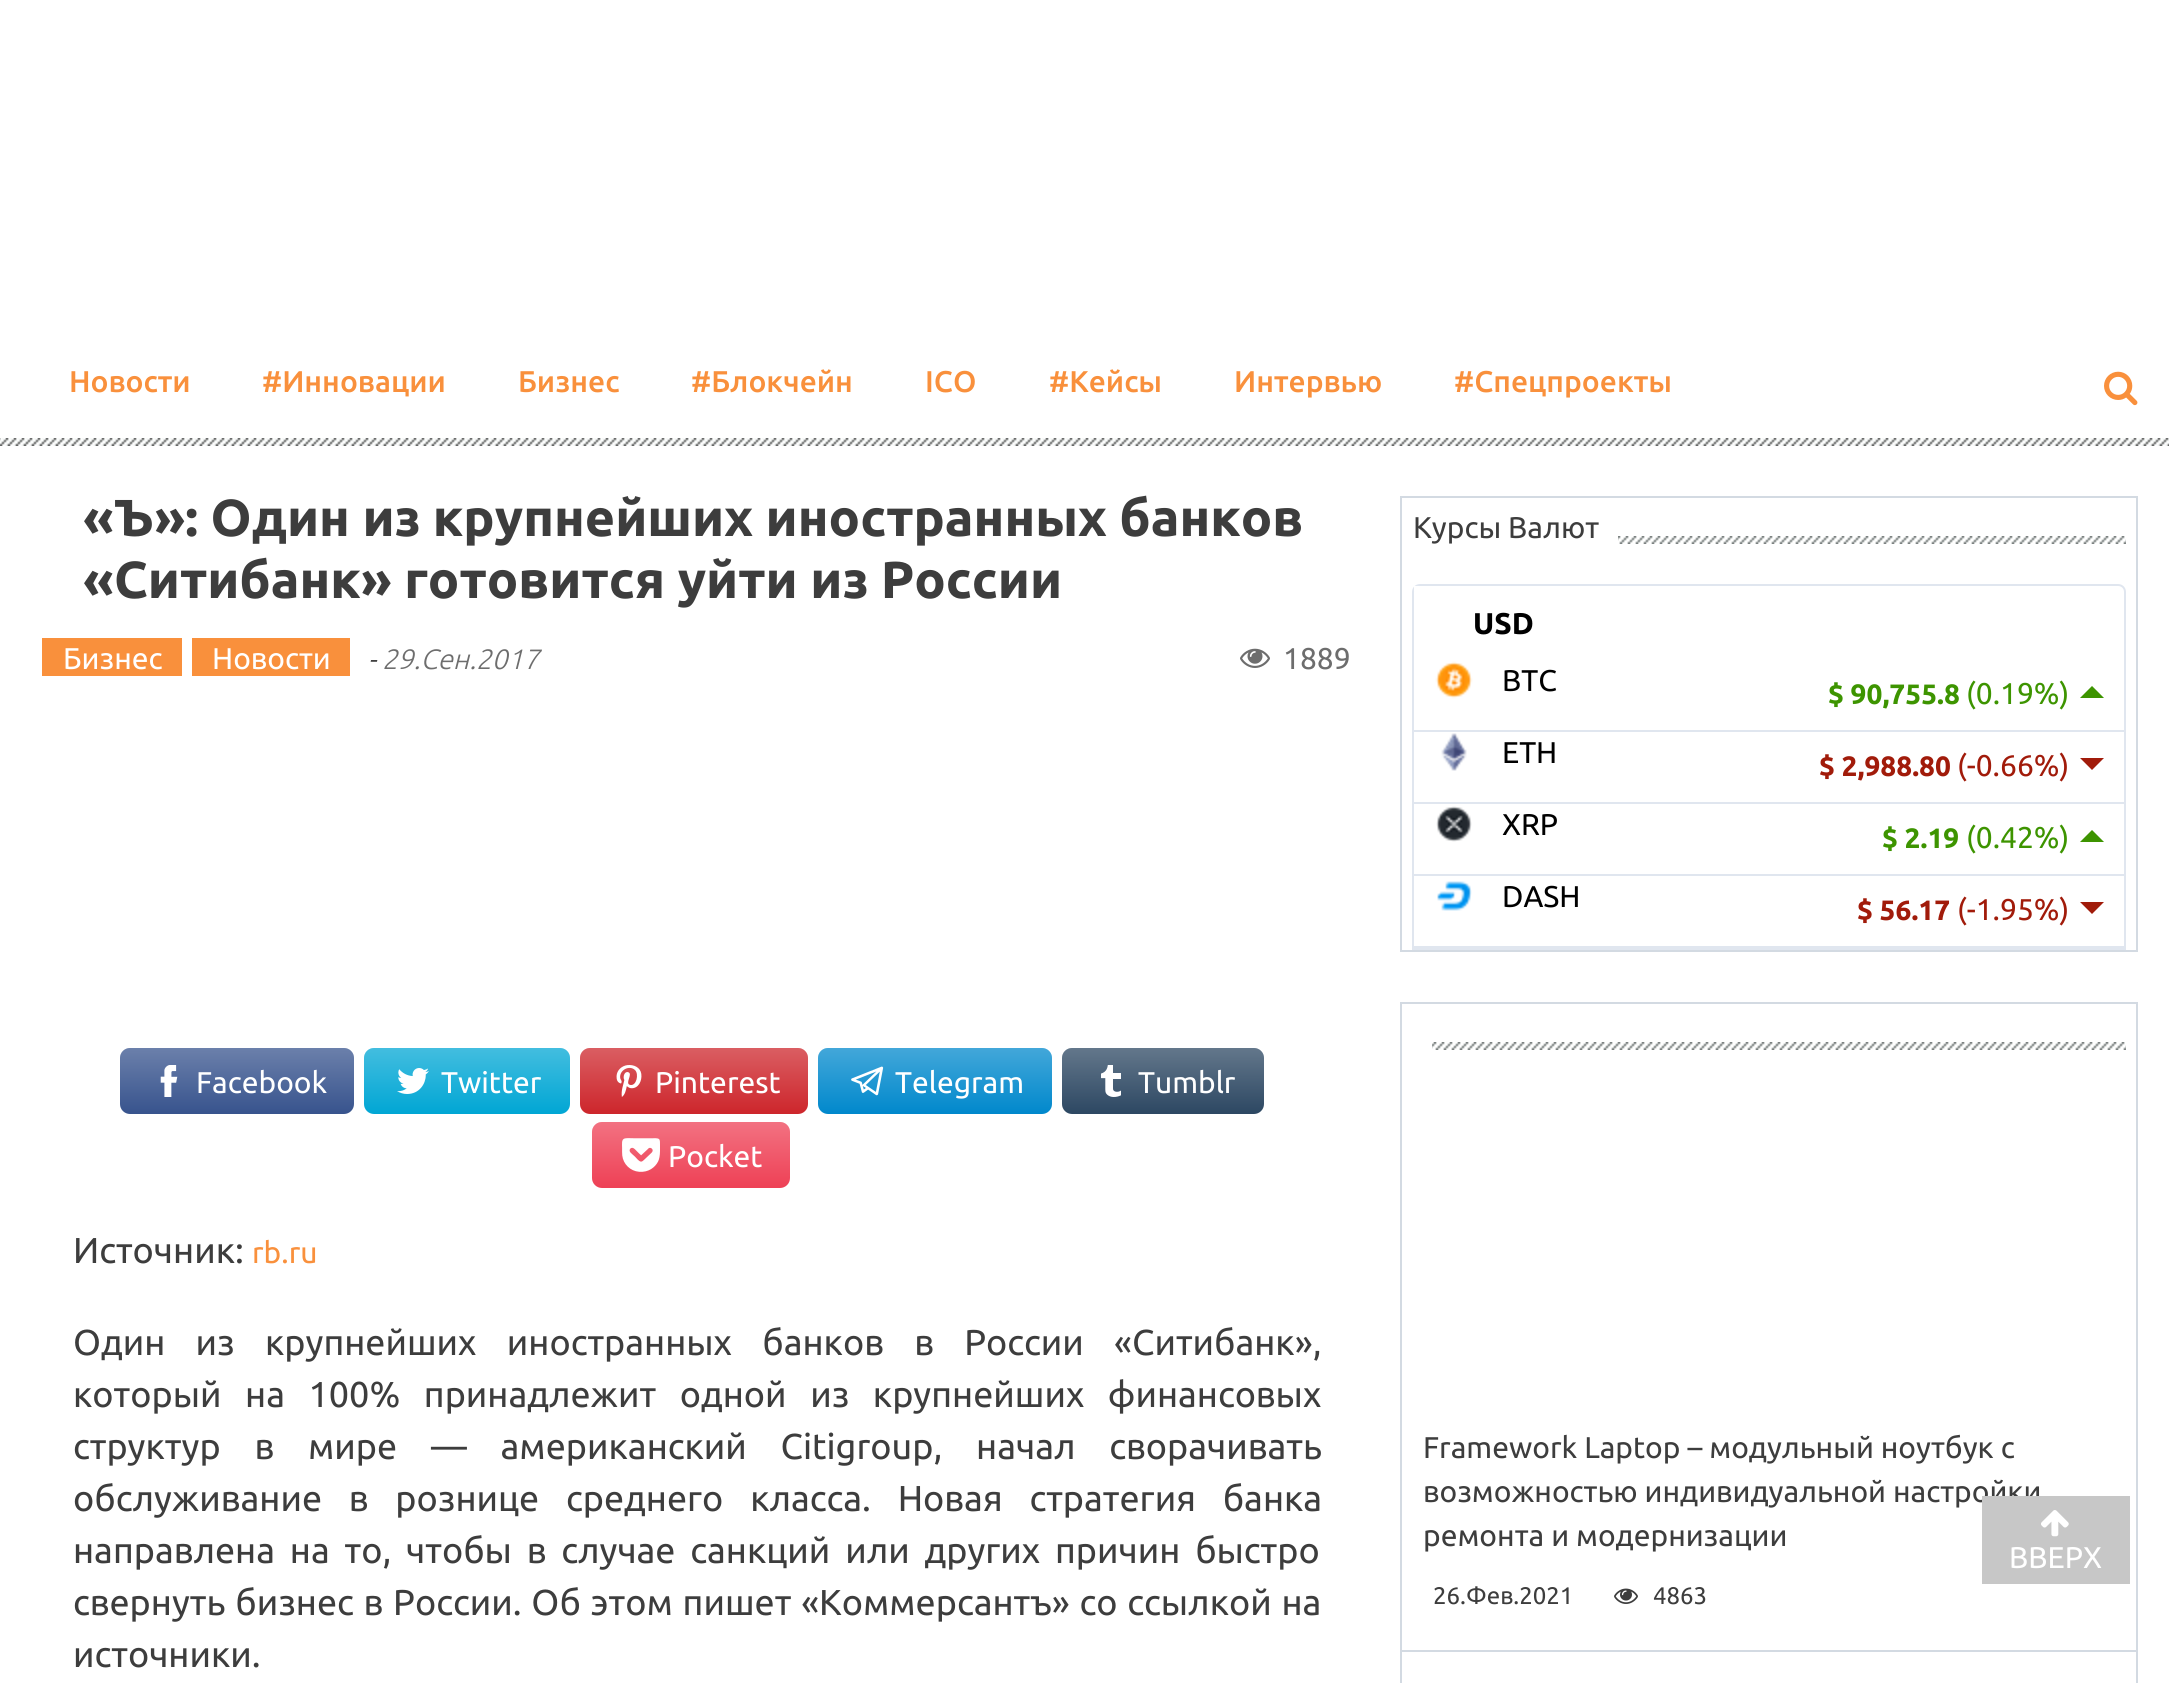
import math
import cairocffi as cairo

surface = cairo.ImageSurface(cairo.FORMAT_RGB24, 2169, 1683)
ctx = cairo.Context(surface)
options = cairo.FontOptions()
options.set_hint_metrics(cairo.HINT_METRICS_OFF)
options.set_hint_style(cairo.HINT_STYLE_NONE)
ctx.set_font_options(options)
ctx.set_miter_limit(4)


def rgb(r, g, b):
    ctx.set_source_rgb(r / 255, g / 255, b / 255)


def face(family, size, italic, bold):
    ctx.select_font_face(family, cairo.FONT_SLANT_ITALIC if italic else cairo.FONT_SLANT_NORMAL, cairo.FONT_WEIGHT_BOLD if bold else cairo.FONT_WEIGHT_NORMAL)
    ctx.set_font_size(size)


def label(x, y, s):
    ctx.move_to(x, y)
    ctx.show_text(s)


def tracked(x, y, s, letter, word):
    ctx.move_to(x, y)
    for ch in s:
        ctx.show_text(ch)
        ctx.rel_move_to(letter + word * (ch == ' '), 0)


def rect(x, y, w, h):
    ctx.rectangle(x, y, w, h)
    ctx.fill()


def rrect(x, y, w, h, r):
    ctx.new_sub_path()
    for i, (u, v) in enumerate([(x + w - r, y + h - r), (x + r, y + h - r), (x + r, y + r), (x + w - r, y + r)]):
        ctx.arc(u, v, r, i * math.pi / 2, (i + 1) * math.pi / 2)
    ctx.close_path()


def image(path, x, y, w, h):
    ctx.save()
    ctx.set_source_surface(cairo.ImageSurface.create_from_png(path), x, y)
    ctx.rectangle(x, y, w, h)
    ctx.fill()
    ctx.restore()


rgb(255, 255, 255)
ctx.paint()
image('image0.png', 0, 438, 2169, 8)
face('Ubuntu Medium', 30, 0, 0)
rgb(249, 144, 60)
label(69, 392, 'Новости')
label(262, 392, '#Инновации')
label(518, 392, 'Бизнес')
label(691, 392, '#Блокчейн')
label(925, 392, 'ICO')
label(1049, 392, '#Кейсы')
label(1234, 392, 'Интервью')
label(1454, 392, '#Спецпроекты')
image('image1.png', 2104, 371, 34, 35)
face('Ubuntu', 52, 0, 1)
rgb(61, 61, 61)
label(83, 536, '«Ъ»: Один из крупнейших иностранных банков')
label(83, 598, '«Ситибанк» готовится уйти из России')
rgb(249, 144, 60)
rect(42, 638, 140, 38)
face('Ubuntu', 30, 0, 0)
rgb(255, 255, 255)
label(63, 669, 'Бизнес')
rgb(249, 144, 60)
rect(192, 638, 158, 38)
rgb(255, 255, 255)
label(212, 669, 'Новости')
face('Ubuntu Light', 28, 1, 0)
rgb(61, 61, 61)
label(368, 669, '-')
rgb(109, 109, 109)
label(382, 669, '29.Сен.2017')
image('image2.png', 1240, 648, 30, 20)
face('Ubuntu', 30, 0, 0)
label(1283, 669, '1889')
rgb(55, 83, 141)
rrect(120, 1048, 234, 66, 10)
ctx.fill()
gradient = cairo.LinearGradient(237, 1114, 237, 1048)
gradient.add_color_stop_rgba(0, 1, 1, 1, 0)
gradient.add_color_stop_rgba(1, 1, 1, 1, 0.26)
ctx.set_source(gradient)
rrect(120, 1048, 234, 66, 10)
ctx.fill()
image('image3.png', 160, 1065, 18, 32)
rgb(255, 255, 255)
label(196, 1093, 'Facebook')
rgb(0, 166, 212)
rrect(364, 1048, 206, 66, 10)
ctx.fill()
gradient = cairo.LinearGradient(467, 1114, 467, 1048)
gradient.add_color_stop_rgba(0, 1, 1, 1, 0)
gradient.add_color_stop_rgba(1, 1, 1, 1, 0.26)
ctx.set_source(gradient)
rrect(364, 1048, 206, 66, 10)
ctx.fill()
image('image4.png', 397, 1068, 32, 26)
rgb(255, 255, 255)
label(441, 1093, 'Twitter')
rgb(205, 37, 43)
rrect(580, 1048, 228, 66, 10)
ctx.fill()
gradient = cairo.LinearGradient(694, 1114, 694, 1048)
gradient.add_color_stop_rgba(0, 1, 1, 1, 0)
gradient.add_color_stop_rgba(1, 1, 1, 1, 0.26)
ctx.set_source(gradient)
rrect(580, 1048, 228, 66, 10)
ctx.fill()
image('image5.png', 616, 1065, 26, 32)
rgb(255, 255, 255)
label(655, 1093, 'Pinterest')
rgb(0, 136, 204)
rrect(818, 1048, 234, 66, 10)
ctx.fill()
gradient = cairo.LinearGradient(935, 1114, 935, 1048)
gradient.add_color_stop_rgba(0, 1, 1, 1, 0)
gradient.add_color_stop_rgba(1, 1, 1, 1, 0.26)
ctx.set_source(gradient)
rrect(818, 1048, 234, 66, 10)
ctx.fill()
image('image6.png', 851, 1066, 33, 30)
rgb(255, 255, 255)
label(895, 1093, 'Telegram')
rgb(44, 71, 98)
rrect(1062, 1048, 202, 66, 10)
ctx.fill()
gradient = cairo.LinearGradient(1163, 1114, 1163, 1048)
gradient.add_color_stop_rgba(0, 1, 1, 1, 0)
gradient.add_color_stop_rgba(1, 1, 1, 1, 0.26)
ctx.set_source(gradient)
rrect(1062, 1048, 202, 66, 10)
ctx.fill()
image('image7.png', 1101, 1065, 20, 32)
rgb(255, 255, 255)
label(1138, 1093, 'Tumblr')
rgb(238, 64, 85)
rrect(592, 1122, 198, 66, 10)
ctx.fill()
gradient = cairo.LinearGradient(691, 1188, 691, 1122)
gradient.add_color_stop_rgba(0, 1, 1, 1, 0)
gradient.add_color_stop_rgba(1, 1, 1, 1, 0.26)
ctx.set_source(gradient)
rrect(592, 1122, 198, 66, 10)
ctx.fill()
image('image8.png', 622, 1138, 38, 34)
rgb(255, 255, 255)
label(668, 1167, 'Pocket')
face('Ubuntu', 36, 0, 0)
rgb(61, 61, 61)
label(73, 1263, 'Источник:')
face('Ubuntu', 30, 0, 0)
rgb(249, 144, 60)
label(252, 1263, 'rb.ru')
face('Ubuntu', 36, 0, 0)
rgb(61, 61, 61)
tracked(73, 1355, 'Один из крупнейших иностранных банков в России «Ситибанк»,', 0, 22)
tracked(73, 1407, 'который на 100% принадлежит одной из крупнейших финансовых', 0, 15.25)
tracked(73, 1459, 'структур в мире — американский Citigroup, начал сворачивать', 0, 25.5)
tracked(73, 1511, 'обслуживание в рознице среднего класса. Новая стратегия банка', 0, 18.5)
tracked(73, 1563, 'направлена на то, чтобы в случае санкций или других причин быстро', 0, 6.5)
tracked(73, 1615, 'свернуть бизнес в России. Об этом пишет «Коммерсантъ» со ссылкой на', 0, 1.5)
label(73, 1667, 'источники.')
ctx.rectangle(1401, 497, 736, 454)
rgb(211, 218, 226)
ctx.stroke()
image('image9.png', 1618, 536, 508, 8)
face('Ubuntu', 30, 0, 0)
rgb(61, 61, 61)
label(1413, 538, 'Курсы Валют')
ctx.new_path()
ctx.move_to(1420, 585)
ctx.line_to(2118, 585)
ctx.curve_to(2122, 585, 2125, 588, 2125, 592)
ctx.line_to(2125, 949)
ctx.line_to(1413, 949)
ctx.line_to(1413, 592)
ctx.curve_to(1413, 588, 1416, 585, 1420, 585)
ctx.close_path()
rgb(224, 230, 239)
ctx.stroke()
rgb(255, 255, 255)
rect(1414, 586, 5, 5)
face('Ubuntu', 30, 0, 1)
rgb(0, 0, 0)
label(1473, 634, 'USD')
rgb(224, 230, 239)
rect(1414, 730, 710, 2)
image('image10.png', 1435, 661, 38, 38)
face('Ubuntu', 30, 0, 0)
rgb(0, 0, 0)
label(1502, 691, 'BTC')
face('Ubuntu', 28, 0, 1)
rgb(61, 148, 0)
label(1828, 704, '$ 90,755.8')
face('Ubuntu', 30, 0, 0)
label(1966, 704, '(0.19%)')
ctx.new_path()
ctx.move_to(2092, 686)
ctx.line_to(2080, 698)
ctx.line_to(2104, 698)
ctx.close_path()
ctx.fill()
rgb(224, 230, 239)
rect(1414, 802, 710, 2)
image('image11.png', 1441, 733, 26, 38)
rgb(0, 0, 0)
label(1502, 763, 'ETH')
face('Ubuntu', 28, 0, 1)
rgb(161, 27, 10)
label(1819, 776, '$ 2,988.80')
face('Ubuntu', 30, 0, 0)
label(1957, 776, '(-0.66%)')
ctx.new_path()
ctx.move_to(2080, 758)
ctx.line_to(2092, 770)
ctx.line_to(2104, 758)
ctx.close_path()
ctx.fill()
rgb(224, 230, 239)
rect(1414, 874, 710, 2)
image('image12.png', 1436, 806, 36, 36)
rgb(0, 0, 0)
label(1502, 835, 'XRP')
face('Ubuntu', 28, 0, 1)
rgb(61, 148, 0)
label(1882, 848, '$ 2.19')
face('Ubuntu', 30, 0, 0)
label(1966, 848, '(0.42%)')
ctx.new_path()
ctx.move_to(2092, 830)
ctx.line_to(2080, 842)
ctx.line_to(2104, 842)
ctx.close_path()
ctx.fill()
rgb(224, 230, 239)
rect(1414, 946, 710, 2)
image('image13.png', 1437, 881, 35, 30)
rgb(0, 0, 0)
label(1502, 907, 'DASH')
face('Ubuntu', 28, 0, 1)
rgb(161, 27, 10)
label(1857, 920, '$ 56.17')
face('Ubuntu', 30, 0, 0)
label(1957, 920, '(-1.95%)')
ctx.new_path()
ctx.move_to(2080, 902)
ctx.line_to(2092, 914)
ctx.line_to(2104, 902)
ctx.close_path()
ctx.fill()
ctx.rectangle(1401, 1003, 736, 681)
rgb(211, 218, 226)
ctx.stroke()
image('image14.png', 1432, 1042, 694, 8)
rect(1402, 1650, 734, 2)
rgb(61, 61, 61)
label(1423, 1458, 'Framework Laptop – модульный ноутбук с')
label(1423, 1502, 'возможностью индивидуальной настройки')
label(1423, 1546, 'ремонта и модернизации')
face('Ubuntu', 24, 0, 0)
label(1433, 1604, '26.Фев.2021')
image('image15.png', 1614, 1588, 24, 16)
label(1653, 1604, '4863')
rgb(199, 199, 199)
rect(1982, 1496, 148, 88)
image('image16.png', 2041, 1510, 28, 27)
face('Ubuntu', 30, 0, 0)
rgb(255, 255, 255)
label(2009, 1568, 'ВВЕРХ')
surface.write_to_png('render.png')
